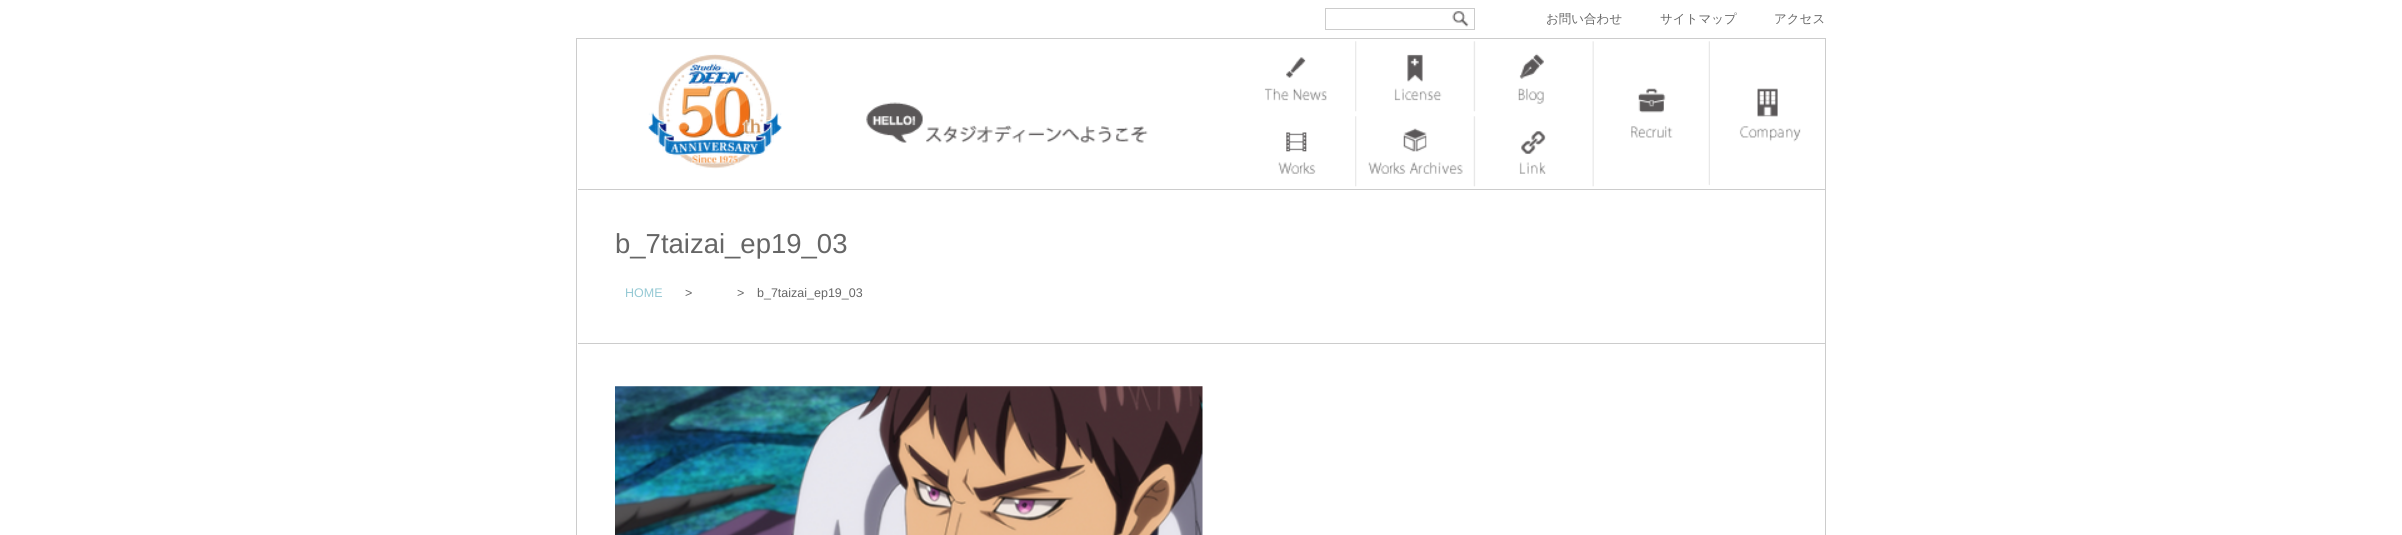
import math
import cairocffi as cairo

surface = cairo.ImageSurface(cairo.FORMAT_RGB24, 2402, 535)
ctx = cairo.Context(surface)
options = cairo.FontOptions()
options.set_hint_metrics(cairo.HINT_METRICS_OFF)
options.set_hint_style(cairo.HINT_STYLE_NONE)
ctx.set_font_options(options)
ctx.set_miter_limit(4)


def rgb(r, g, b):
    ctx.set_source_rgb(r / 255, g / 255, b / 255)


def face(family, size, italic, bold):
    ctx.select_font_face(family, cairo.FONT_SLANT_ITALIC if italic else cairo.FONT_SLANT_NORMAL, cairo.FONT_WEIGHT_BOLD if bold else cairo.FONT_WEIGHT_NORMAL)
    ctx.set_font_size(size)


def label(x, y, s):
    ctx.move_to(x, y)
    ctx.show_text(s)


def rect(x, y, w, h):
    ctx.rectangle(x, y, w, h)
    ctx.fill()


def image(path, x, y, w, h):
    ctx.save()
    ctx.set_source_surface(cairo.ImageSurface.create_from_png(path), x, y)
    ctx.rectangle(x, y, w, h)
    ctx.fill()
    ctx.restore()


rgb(255, 255, 255)
ctx.paint()
ctx.rectangle(576.5, 38.5, 1249, 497)
rgb(204, 204, 204)
ctx.set_line_width(1)
ctx.stroke()
rect(578, 189, 1247, 1)
ctx.rectangle(1325.5, 8.5, 149, 21)
ctx.stroke()
image('image0.png', 1452, 11, 17, 16)
face('WenQuanYi Zen Hei Medium', 12.5, 0, 0)
rgb(102, 102, 102)
label(1546, 23, 'お問い合わせ')
label(1660, 23, 'サイトマップ')
label(1774, 23, 'アクセス')
image('image1.png', 648, 54, 134, 115)
image('image2.png', 866, 102, 282, 41)
image('image3.png', 1355, 41, 355, 146)
image('image4.png', 1264, 57, 63, 44)
image('image5.png', 1394, 54, 48, 47)
image('image6.png', 1518, 53, 26, 51)
image('image7.png', 1278, 132, 38, 42)
image('image8.png', 1368, 128, 95, 46)
image('image9.png', 1519, 131, 27, 43)
image('image10.png', 1631, 88, 42, 50)
image('image11.png', 1739, 88, 62, 54)
rgb(204, 204, 204)
rect(578, 343, 1247, 1)
face('Liberation Sans', 27.5, 0, 0)
rgb(102, 102, 102)
label(615, 253, 'b_7taizai_ep19_03')
face('Liberation Sans', 12.5, 0, 0)
rgb(149, 201, 212)
label(625, 297, 'HOME')
rgb(102, 102, 102)
label(685, 297, '>')
label(737, 297, '>')
label(757, 297, 'b_7taizai_ep19_03')
image('image12.png', 615, 386, 588, 149)
surface.write_to_png('render.png')
